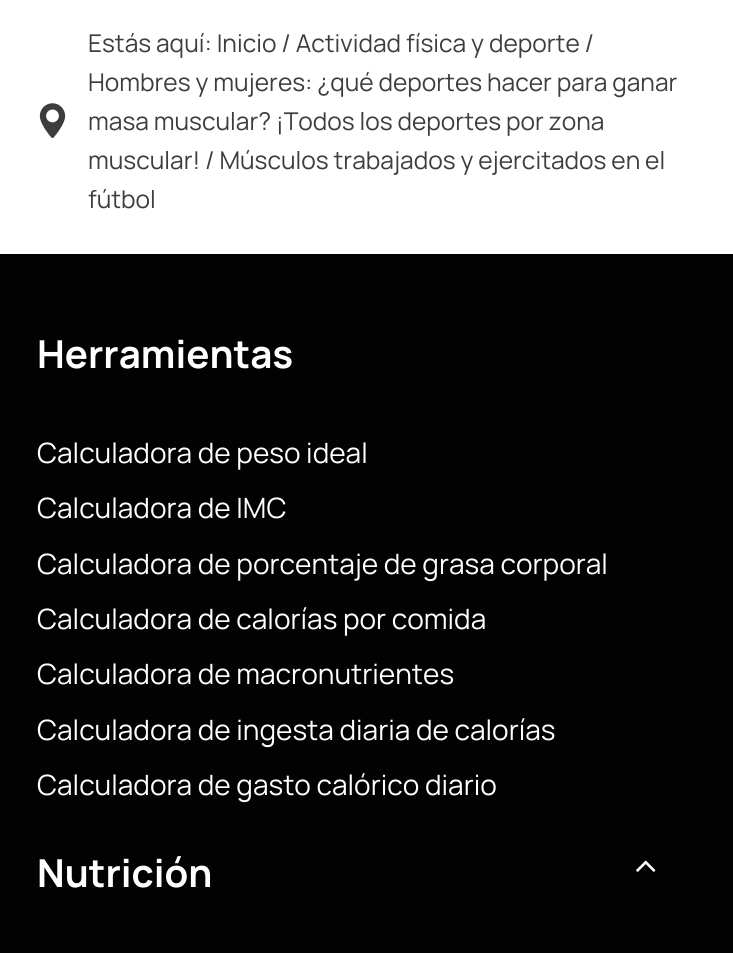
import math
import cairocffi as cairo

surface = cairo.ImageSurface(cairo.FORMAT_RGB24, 733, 953)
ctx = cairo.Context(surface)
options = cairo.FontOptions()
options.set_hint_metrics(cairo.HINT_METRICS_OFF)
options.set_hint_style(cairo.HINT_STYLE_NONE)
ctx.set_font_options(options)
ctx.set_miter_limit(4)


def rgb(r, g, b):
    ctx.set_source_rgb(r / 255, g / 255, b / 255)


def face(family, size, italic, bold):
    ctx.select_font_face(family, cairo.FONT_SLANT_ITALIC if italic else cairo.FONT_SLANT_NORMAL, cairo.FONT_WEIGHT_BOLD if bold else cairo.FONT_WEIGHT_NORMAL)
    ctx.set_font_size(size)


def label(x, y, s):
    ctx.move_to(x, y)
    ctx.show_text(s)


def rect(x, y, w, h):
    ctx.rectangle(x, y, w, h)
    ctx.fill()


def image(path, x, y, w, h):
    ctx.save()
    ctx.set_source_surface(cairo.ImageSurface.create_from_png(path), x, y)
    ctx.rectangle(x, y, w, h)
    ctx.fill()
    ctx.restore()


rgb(255, 255, 255)
ctx.paint()
image('image0.png', 39, 103, 27, 35)
face('Manrope', 24.5, 0, 0)
rgb(61, 61, 61)
label(88, 52, 'Estás aquí: Inicio / Actividad física y deporte /')
label(88, 91, 'Hombres y mujeres: ¿qué deportes hacer para ganar')
label(88, 130, 'masa muscular? ¡Todos los deportes por zona')
label(88, 169, 'muscular! / Músculos trabajados y ejercitados en el')
label(88, 208, 'fútbol')
rgb(2, 2, 2)
rect(0, 254, 733, 699)
face('Manrope', 38.5, 0, 1)
rgb(255, 255, 255)
label(37, 368, 'Herramientas')
face('Manrope', 28, 0, 0)
label(37, 463, 'Calculadora de peso ideal')
label(37, 518, 'Calculadora de IMC')
label(37, 574, 'Calculadora de porcentaje de grasa corporal')
label(37, 629, 'Calculadora de calorías por comida')
label(37, 684, 'Calculadora de macronutrientes')
label(37, 740, 'Calculadora de ingesta diaria de calorías')
label(37, 795, 'Calculadora de gasto calórico diario')
face('Manrope', 38.5, 0, 1)
label(37, 887, 'Nutrición')
image('image1.png', 636, 860, 20, 12)
surface.write_to_png('render.png')
